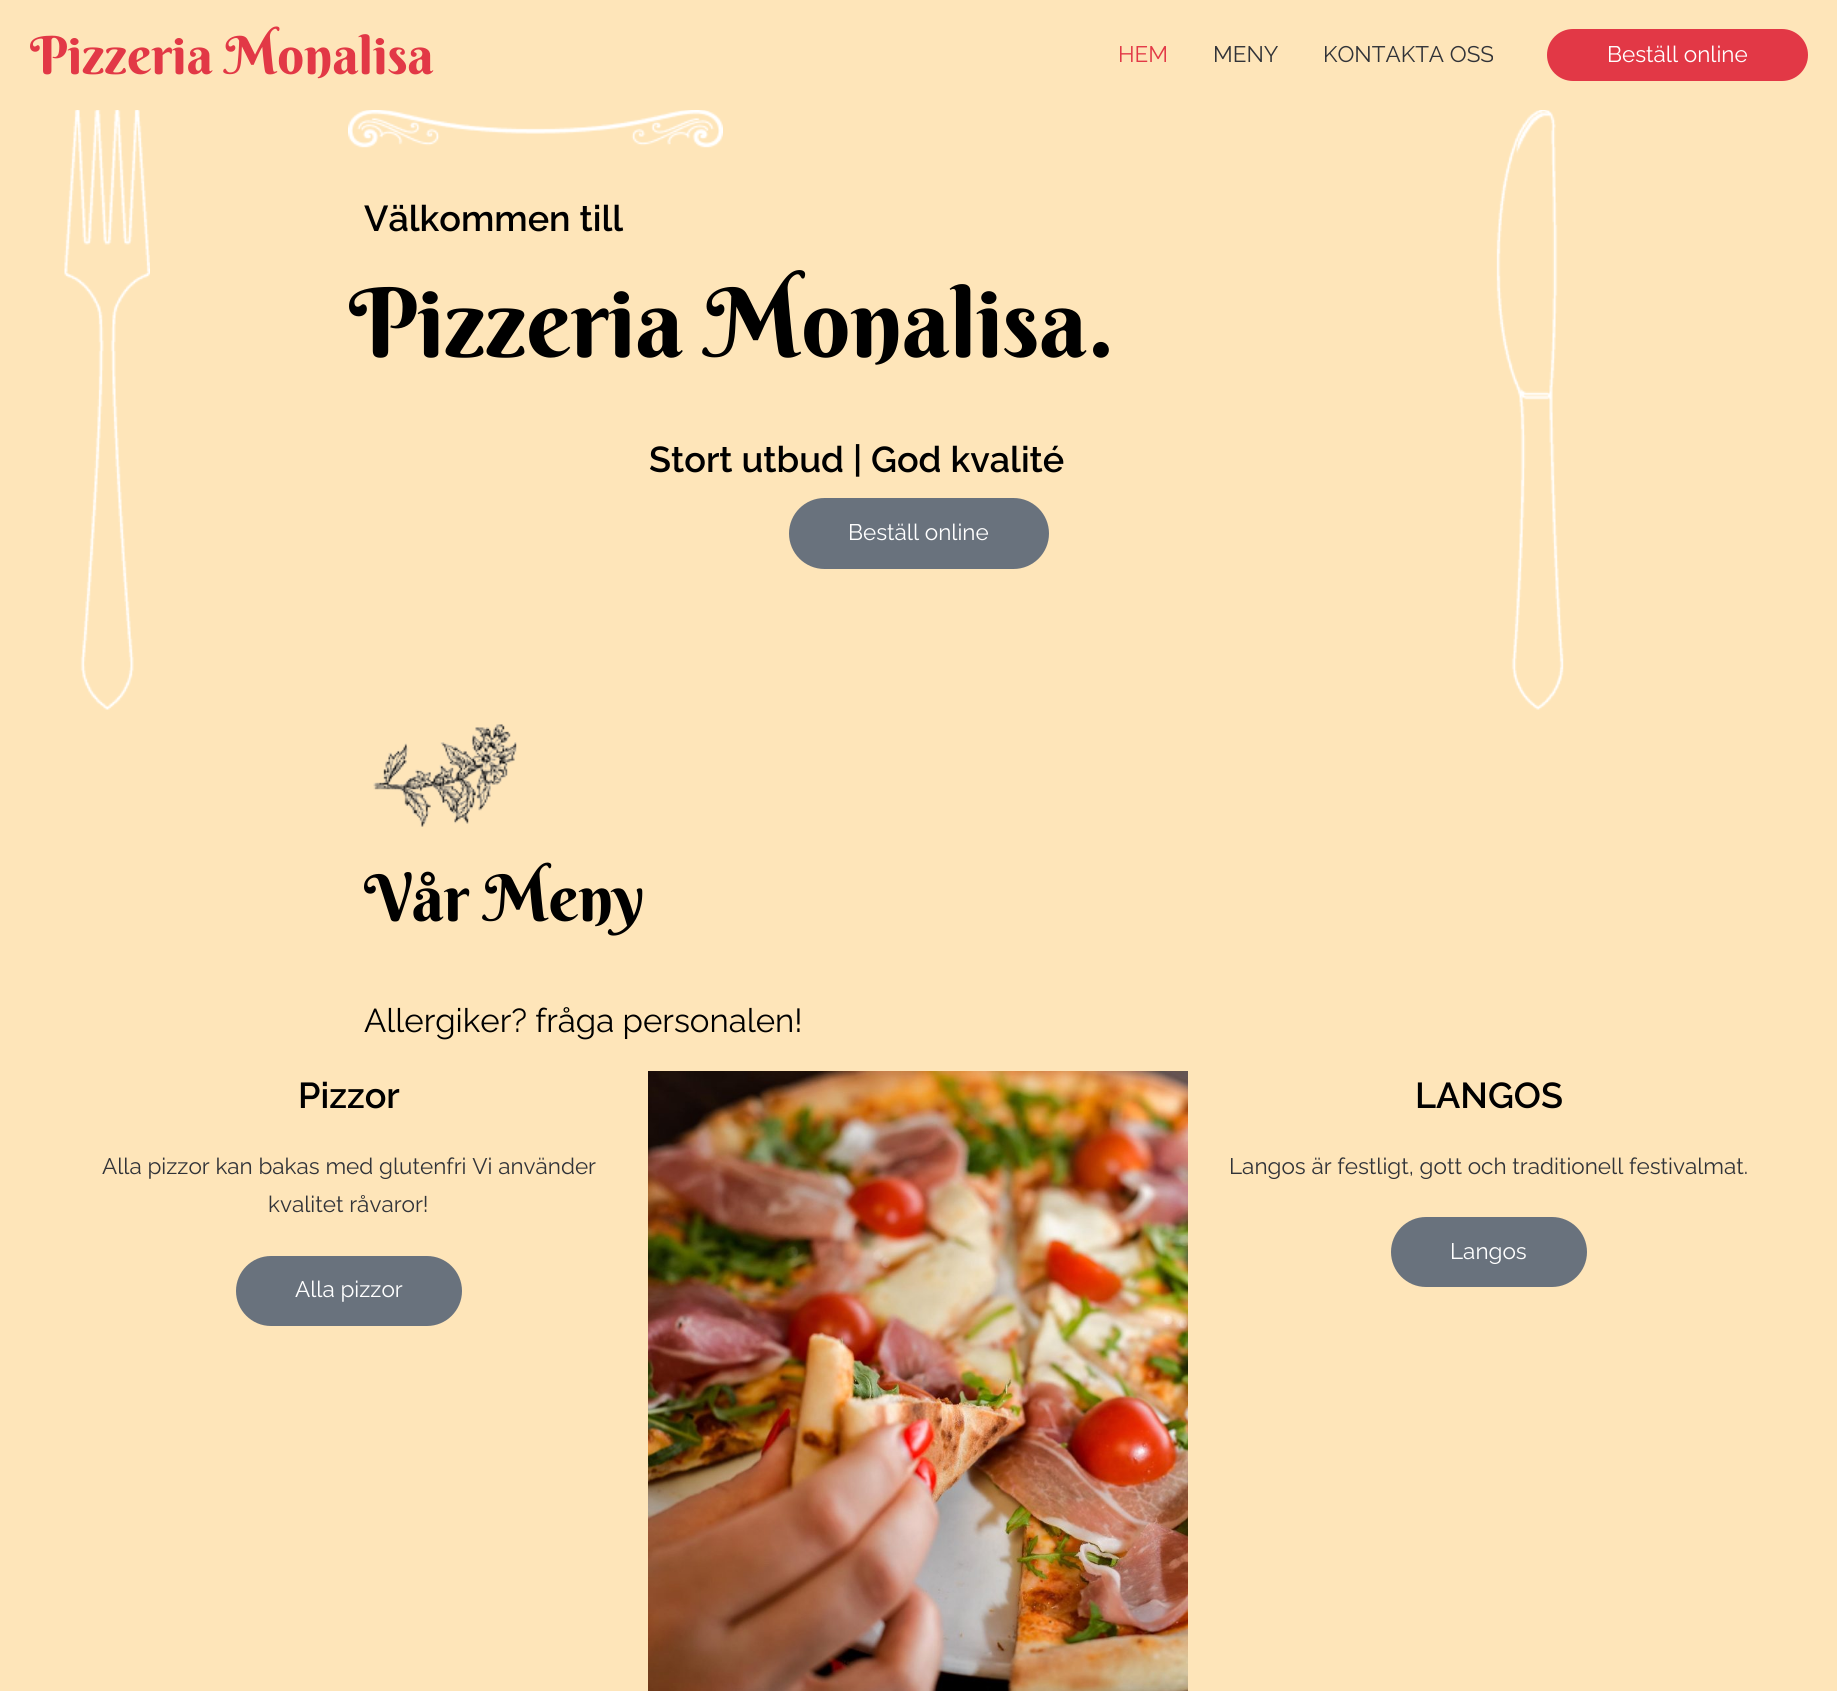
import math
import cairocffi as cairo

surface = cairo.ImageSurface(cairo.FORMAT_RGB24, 1837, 1691)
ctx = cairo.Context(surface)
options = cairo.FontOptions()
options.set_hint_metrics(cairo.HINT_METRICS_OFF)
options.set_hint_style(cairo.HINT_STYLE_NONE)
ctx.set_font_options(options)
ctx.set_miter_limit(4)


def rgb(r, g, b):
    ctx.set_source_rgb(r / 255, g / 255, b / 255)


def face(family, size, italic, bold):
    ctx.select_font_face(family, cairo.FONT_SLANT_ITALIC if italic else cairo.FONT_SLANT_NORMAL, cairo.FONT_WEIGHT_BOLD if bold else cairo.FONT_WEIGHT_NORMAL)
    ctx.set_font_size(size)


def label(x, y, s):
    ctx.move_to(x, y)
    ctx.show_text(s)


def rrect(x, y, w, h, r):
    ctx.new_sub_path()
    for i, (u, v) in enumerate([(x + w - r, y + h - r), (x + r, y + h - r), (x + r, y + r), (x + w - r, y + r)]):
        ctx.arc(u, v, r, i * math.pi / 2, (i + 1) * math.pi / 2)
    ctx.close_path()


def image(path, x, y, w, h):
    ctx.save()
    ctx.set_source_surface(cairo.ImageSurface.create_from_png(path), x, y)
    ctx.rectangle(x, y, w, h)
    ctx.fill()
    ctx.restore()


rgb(254, 229, 185)
ctx.paint()
face('Berkshire Swash', 52.5, 0, 0)
rgb(226, 56, 70)
label(30, 74, 'Pizzeria Monalisa')
face('Raleway', 22.5, 0, 0)
label(1118, 62, 'HEM')
rgb(49, 51, 56)
label(1213, 62, 'MENY')
label(1323, 62, 'KONTAKTA OSS')
rgb(226, 56, 70)
rrect(1547, 29, 261, 52, 26)
ctx.fill()
rgb(255, 255, 255)
label(1607, 62, 'Beställ online')
image('image0.png', 64, 110, 86, 600)
image('image1.png', 348, 110, 375, 38)
face('Raleway SemiBold', 36, 0, 0)
rgb(0, 0, 0)
label(364, 231, 'Välkommen till')
face('Berkshire Swash', 96, 0, 0)
label(349, 357, 'Pizzeria Monalisa.')
face('Raleway SemiBold', 36, 0, 0)
label(649, 472, 'Stort utbud | God kvalité')
rgb(105, 114, 125)
rrect(789, 498, 260, 71, 35.5)
ctx.fill()
face('Raleway', 22.5, 0, 0)
rgb(255, 255, 255)
label(848, 540, 'Beställ online')
image('image2.png', 1496, 110, 68, 600)
image('image3.png', 373, 724, 144, 103)
face('Berkshire Swash', 64.5, 0, 0)
rgb(0, 0, 0)
label(364, 921, 'Vår Meny')
face('Raleway', 33, 0, 0)
label(364, 1032, 'Allergiker? fråga personalen!')
face('Raleway SemiBold', 36, 0, 0)
label(298, 1108, 'Pizzor')
face('Raleway', 22.5, 0, 0)
rgb(49, 51, 56)
label(102, 1174, 'Alla pizzor kan bakas med glutenfri Vi använder')
label(268, 1212, 'kvalitet råvaror!')
rgb(105, 114, 125)
rrect(236, 1256, 226, 70, 35)
ctx.fill()
rgb(255, 255, 255)
label(295, 1297, 'Alla pizzor')
image('image4.png', 648, 1071, 540, 620)
face('Raleway SemiBold', 36, 0, 0)
rgb(0, 0, 0)
label(1415, 1108, 'LANGOS')
face('Raleway', 22.5, 0, 0)
rgb(49, 51, 56)
label(1229, 1174, 'Langos är festligt, gott och traditionell festivalmat.')
rgb(105, 114, 125)
rrect(1391, 1217, 196, 70, 35)
ctx.fill()
rgb(255, 255, 255)
label(1450, 1259, 'Langos')
surface.write_to_png('render.png')
